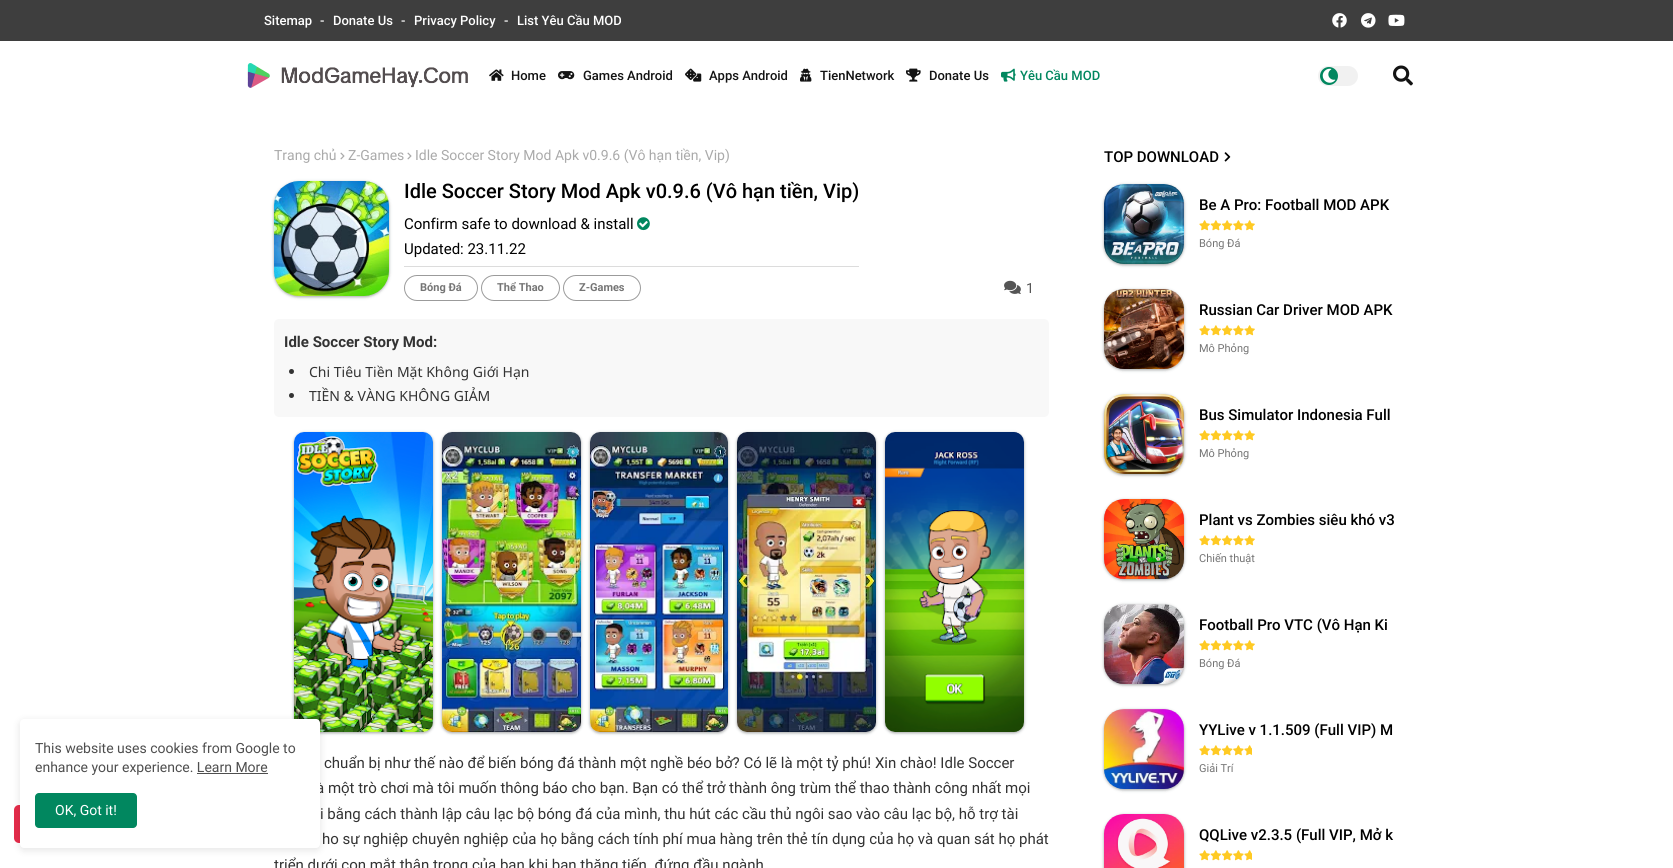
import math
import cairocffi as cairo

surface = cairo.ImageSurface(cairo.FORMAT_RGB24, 1673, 868)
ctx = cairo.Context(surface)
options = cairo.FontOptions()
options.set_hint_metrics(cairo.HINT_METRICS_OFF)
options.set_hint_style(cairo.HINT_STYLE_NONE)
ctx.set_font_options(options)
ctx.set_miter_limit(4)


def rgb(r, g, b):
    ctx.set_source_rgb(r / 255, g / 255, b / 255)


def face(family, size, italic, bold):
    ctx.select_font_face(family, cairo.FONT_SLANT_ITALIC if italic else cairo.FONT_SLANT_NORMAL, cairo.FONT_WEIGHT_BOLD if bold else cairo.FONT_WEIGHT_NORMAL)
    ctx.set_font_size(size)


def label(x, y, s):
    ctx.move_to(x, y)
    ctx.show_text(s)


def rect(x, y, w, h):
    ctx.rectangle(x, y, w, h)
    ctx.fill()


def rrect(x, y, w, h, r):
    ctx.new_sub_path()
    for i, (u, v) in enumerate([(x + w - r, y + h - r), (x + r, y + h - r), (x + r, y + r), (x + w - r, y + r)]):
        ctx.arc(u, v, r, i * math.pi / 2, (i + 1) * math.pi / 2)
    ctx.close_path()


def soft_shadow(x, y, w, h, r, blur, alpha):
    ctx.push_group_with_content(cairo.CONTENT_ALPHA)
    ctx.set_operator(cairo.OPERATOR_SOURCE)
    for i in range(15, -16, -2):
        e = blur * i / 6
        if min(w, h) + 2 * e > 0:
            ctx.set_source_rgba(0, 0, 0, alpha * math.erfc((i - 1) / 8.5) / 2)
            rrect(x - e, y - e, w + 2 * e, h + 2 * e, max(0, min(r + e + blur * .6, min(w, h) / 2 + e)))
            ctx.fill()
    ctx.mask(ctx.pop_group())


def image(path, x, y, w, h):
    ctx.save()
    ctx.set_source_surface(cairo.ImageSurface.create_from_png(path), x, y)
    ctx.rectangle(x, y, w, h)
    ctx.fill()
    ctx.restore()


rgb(255, 255, 255)
ctx.paint()
rgb(62, 62, 62)
rect(0, 0, 1673, 41)
face('Roboto Medium', 13, 0, 0)
rgb(255, 255, 255)
label(264, 25, 'Sitemap')
label(320, 25, '-')
label(333, 25, 'Donate Us')
label(401, 25, '-')
label(414, 25, 'Privacy Policy')
label(504, 25, '-')
label(517, 25, 'List Yêu Cầu MOD')
image('image0.png', 1332, 13, 15, 15)
image('image1.png', 1361, 13, 15, 15)
image('image2.png', 1388, 14, 17, 12)
image('image3.png', 247, 63, 221, 25)
image('image4.png', 489, 69, 15, 12)
rgb(19, 19, 19)
label(511, 80, 'Home')
image('image5.png', 558, 71, 17, 9)
label(583, 80, 'Games Android')
image('image6.png', 685, 68, 17, 14)
label(709, 80, 'Apps Android')
image('image7.png', 800, 68, 12, 14)
label(820, 80, 'TienNetwork')
image('image8.png', 906, 68, 15, 14)
label(929, 80, 'Donate Us')
image('image9.png', 1001, 68, 15, 14)
rgb(1, 135, 95)
label(1020, 80, 'Yêu Cầu MOD')
rgb(241, 241, 241)
rrect(1318, 66, 40, 20, 10)
ctx.fill()
rgb(1, 135, 95)
ctx.arc(1329, 76, 9, 0, 2 * math.pi)
ctx.fill()
image('image10.png', 1322, 68, 14, 15)
image('image11.png', 1393, 65, 20, 21)
ctx.save()
ctx.set_fill_rule(cairo.FILL_RULE_EVEN_ODD)
ctx.new_path()
ctx.move_to(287, 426)
ctx.line_to(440, 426)
ctx.line_to(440, 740)
ctx.line_to(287, 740)
ctx.close_path()
ctx.move_to(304, 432)
ctx.line_to(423, 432)
ctx.curve_to(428.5, 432, 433, 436.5, 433, 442)
ctx.line_to(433, 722)
ctx.curve_to(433, 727.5, 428.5, 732, 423, 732)
ctx.line_to(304, 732)
ctx.curve_to(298.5, 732, 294, 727.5, 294, 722)
ctx.line_to(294, 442)
ctx.curve_to(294, 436.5, 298.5, 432, 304, 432)
ctx.close_path()
ctx.clip()
rgb(60, 64, 67)
soft_shadow(293, 432, 141, 302, 11, 1.5, 0.15)
ctx.restore()
rgb(60, 64, 67)
soft_shadow(294, 433, 139, 300, 10, 1, 0.3)
image('image16.png', 294, 432, 139, 300)
rgb(229, 44, 74)
rrect(14, 805, 140, 38, 5)
ctx.fill()
rgb(0, 0, 0)
soft_shadow(20, 721, 300, 129, 4, 4, 0.11)
face('Roboto', 15, 0, 0)
rgb(51, 51, 51)
label(316, 793, 'à một trò chơi mà tôi muốn thông báo cho bạn. Bạn có thể trở thành ông trùm thể thao thành công nhất mọi')
rgb(255, 255, 255)
rrect(20, 719, 300, 129, 4)
ctx.fill()
face('Roboto', 14, 0, 0)
rgb(78, 78, 78)
label(35, 753, 'This website uses cookies from Google to')
label(35, 772, 'enhance your experience. Learn More')
rect(197, 773, 71, 1)
rgb(1, 135, 95)
rrect(35, 793, 102, 35, 4)
ctx.fill()
rgb(255, 255, 255)
label(55, 815, 'OK, Got it!')
rgb(170, 170, 170)
label(274, 160, 'Trang chủ')
image('image12.png', 340, 152, 5, 8)
label(348, 160, 'Z-Games')
image('image12.png', 407, 152, 5, 8)
label(415, 160, 'Idle Soccer Story Mod Apk v0.9.6 (Vô hạn tiền, Vip)')
rgb(60, 64, 67)
soft_shadow(273, 181, 117, 117, 26, 1.5, 0.15)
soft_shadow(274, 182, 115, 115, 25, 1, 0.3)
ctx.set_source_rgba(0.608, 0.608, 0.608, 0.1)
rrect(274, 181, 115, 115, 25)
ctx.fill()
image('image13.png', 274, 181, 115, 115)
face('Roboto Medium', 20, 0, 0)
rgb(0, 0, 0)
label(404, 198, 'Idle Soccer Story Mod Apk v0.9.6 (Vô hạn tiền, Vip)')
rgb(220, 220, 220)
rect(404, 266, 455, 1)
face('Roboto', 15, 0, 0)
rgb(0, 0, 0)
label(404, 229, 'Confirm safe to download & install')
image('image14.png', 637, 217, 13, 14)
label(404, 254, 'Updated: 23.11.22')
rrect(404.5, 275.5, 73, 25, 12.5)
rgb(155, 155, 155)
ctx.set_line_width(1)
ctx.stroke()
face('Roboto', 11, 0, 1)
rgb(117, 117, 117)
label(420, 291, 'Bóng Đá')
rrect(481.5, 275.5, 78, 25, 12.5)
rgb(155, 155, 155)
ctx.stroke()
rgb(117, 117, 117)
label(497, 291, 'Thể Thao')
rrect(563.5, 275.5, 77, 25, 12.5)
rgb(155, 155, 155)
ctx.stroke()
rgb(117, 117, 117)
label(579, 291, 'Z-Games')
image('image15.png', 1004, 280, 17, 14)
face('Roboto', 14, 0, 0)
rgb(85, 85, 85)
label(1026, 293, '1')
rgb(248, 248, 248)
rrect(274, 319, 775, 98, 5)
ctx.fill()
face('Roboto', 15, 0, 1)
rgb(51, 51, 51)
label(284, 347, 'Idle Soccer Story Mod:')
ctx.new_path()
ctx.arc(291.5, 371.5, 2.5, 0, 2 * math.pi)
ctx.fill()
face('Noto Sans', 14, 0, 0)
label(309, 377, 'Chi Tiêu Tiền Mặt Không Giới Hạn')
ctx.new_path()
ctx.arc(291.5, 395.5, 2.5, 0, 2 * math.pi)
ctx.fill()
label(309, 401, 'TIỀN & VÀNG KHÔNG GIẢM')
ctx.save()
ctx.set_fill_rule(cairo.FILL_RULE_EVEN_ODD)
ctx.new_path()
ctx.move_to(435, 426)
ctx.line_to(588, 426)
ctx.line_to(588, 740)
ctx.line_to(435, 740)
ctx.close_path()
ctx.move_to(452, 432)
ctx.line_to(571, 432)
ctx.curve_to(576.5, 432, 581, 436.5, 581, 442)
ctx.line_to(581, 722)
ctx.curve_to(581, 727.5, 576.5, 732, 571, 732)
ctx.line_to(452, 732)
ctx.curve_to(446.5, 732, 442, 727.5, 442, 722)
ctx.line_to(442, 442)
ctx.curve_to(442, 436.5, 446.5, 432, 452, 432)
ctx.close_path()
ctx.clip()
rgb(60, 64, 67)
soft_shadow(441, 432, 141, 302, 11, 1.5, 0.15)
ctx.restore()
ctx.save()
ctx.set_fill_rule(cairo.FILL_RULE_EVEN_ODD)
ctx.new_path()
ctx.move_to(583, 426)
ctx.line_to(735, 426)
ctx.line_to(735, 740)
ctx.line_to(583, 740)
ctx.close_path()
ctx.move_to(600, 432)
ctx.line_to(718, 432)
ctx.curve_to(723.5, 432, 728, 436.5, 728, 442)
ctx.line_to(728, 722)
ctx.curve_to(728, 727.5, 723.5, 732, 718, 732)
ctx.line_to(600, 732)
ctx.curve_to(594.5, 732, 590, 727.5, 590, 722)
ctx.line_to(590, 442)
ctx.curve_to(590, 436.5, 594.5, 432, 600, 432)
ctx.close_path()
ctx.clip()
rgb(60, 64, 67)
soft_shadow(589, 432, 140, 302, 11, 1.5, 0.15)
ctx.restore()
ctx.save()
ctx.set_fill_rule(cairo.FILL_RULE_EVEN_ODD)
ctx.new_path()
ctx.move_to(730, 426)
ctx.line_to(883, 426)
ctx.line_to(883, 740)
ctx.line_to(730, 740)
ctx.close_path()
ctx.move_to(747, 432)
ctx.line_to(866, 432)
ctx.curve_to(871.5, 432, 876, 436.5, 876, 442)
ctx.line_to(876, 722)
ctx.curve_to(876, 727.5, 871.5, 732, 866, 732)
ctx.line_to(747, 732)
ctx.curve_to(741.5, 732, 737, 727.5, 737, 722)
ctx.line_to(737, 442)
ctx.curve_to(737, 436.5, 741.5, 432, 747, 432)
ctx.close_path()
ctx.clip()
rgb(60, 64, 67)
soft_shadow(736, 432, 141, 302, 11, 1.5, 0.15)
ctx.restore()
ctx.save()
ctx.set_fill_rule(cairo.FILL_RULE_EVEN_ODD)
ctx.new_path()
ctx.move_to(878, 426)
ctx.line_to(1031, 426)
ctx.line_to(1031, 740)
ctx.line_to(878, 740)
ctx.close_path()
ctx.move_to(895, 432)
ctx.line_to(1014, 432)
ctx.curve_to(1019.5, 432, 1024, 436.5, 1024, 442)
ctx.line_to(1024, 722)
ctx.curve_to(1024, 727.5, 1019.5, 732, 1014, 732)
ctx.line_to(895, 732)
ctx.curve_to(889.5, 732, 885, 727.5, 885, 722)
ctx.line_to(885, 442)
ctx.curve_to(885, 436.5, 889.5, 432, 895, 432)
ctx.close_path()
ctx.clip()
rgb(60, 64, 67)
soft_shadow(884, 432, 141, 302, 11, 1.5, 0.15)
ctx.restore()
rgb(60, 64, 67)
soft_shadow(442, 433, 139, 300, 10, 1, 0.3)
soft_shadow(590, 433, 138, 300, 10, 1, 0.3)
soft_shadow(737, 433, 139, 300, 10, 1, 0.3)
soft_shadow(885, 433, 139, 300, 10, 1, 0.3)
image('image17.png', 442, 432, 139, 300)
image('image18.png', 590, 432, 138, 300)
image('image19.png', 737, 432, 139, 300)
image('image20.png', 885, 432, 139, 300)
face('Roboto', 15, 0, 0)
rgb(51, 51, 51)
label(324, 768, 'chuẩn bị như thế nào để biến bóng đá thành một nghề béo bở? Có lẽ là một tỷ phú! Xin chào! Idle Soccer')
label(320, 819, 'i bằng cách thành lập câu lạc bộ bóng đá của mình, thu hút các cầu thủ ngôi sao vào câu lạc bộ, hỗ trợ tài')
label(322, 844, 'ho sự nghiệp chuyên nghiệp của họ bằng cách tính phí mua hàng trên thẻ tín dụng của họ và quan sát họ phát')
label(274, 870, 'triển dưới con mắt thận trọng của bạn khi bạn thăng tiến. đứng đầu ngành')
face('Roboto Medium', 15, 0, 0)
rgb(0, 0, 0)
label(1104, 162, 'TOP DOWNLOAD')
image('image21.png', 1224, 152, 7, 10)
rgb(60, 64, 67)
soft_shadow(1103, 184, 82, 82, 21, 1.5, 0.15)
soft_shadow(1104, 185, 80, 80, 20, 1, 0.3)
ctx.set_source_rgba(0.608, 0.608, 0.608, 0.1)
rrect(1104, 184, 80, 80, 20)
ctx.fill()
image('image22.png', 1104, 184, 80, 80)
rgb(0, 0, 0)
label(1199, 210, 'Be A Pro: Football MOD APK')
image('image23.png', 1199, 220, 56, 11)
face('Roboto', 11, 0, 0)
rgb(117, 117, 117)
label(1199, 247, 'Bóng Đá')
rgb(60, 64, 67)
soft_shadow(1103, 289, 82, 82, 21, 1.5, 0.15)
soft_shadow(1104, 290, 80, 80, 20, 1, 0.3)
ctx.set_source_rgba(0.608, 0.608, 0.608, 0.1)
rrect(1104, 289, 80, 80, 20)
ctx.fill()
image('image24.png', 1104, 289, 80, 80)
face('Roboto Medium', 15, 0, 0)
rgb(0, 0, 0)
label(1199, 315, 'Russian Car Driver MOD APK')
image('image23.png', 1199, 325, 56, 11)
face('Roboto', 11, 0, 0)
rgb(117, 117, 117)
label(1199, 352, 'Mô Phỏng')
rgb(60, 64, 67)
soft_shadow(1103, 394, 82, 82, 21, 1.5, 0.15)
soft_shadow(1104, 395, 80, 80, 20, 1, 0.3)
ctx.set_source_rgba(0.608, 0.608, 0.608, 0.1)
rrect(1104, 394, 80, 80, 20)
ctx.fill()
image('image25.png', 1104, 394, 80, 80)
face('Roboto Medium', 15, 0, 0)
rgb(0, 0, 0)
label(1199, 420, 'Bus Simulator Indonesia Full')
image('image23.png', 1199, 430, 56, 11)
face('Roboto', 11, 0, 0)
rgb(117, 117, 117)
label(1199, 457, 'Mô Phỏng')
rgb(60, 64, 67)
soft_shadow(1103, 499, 82, 82, 21, 1.5, 0.15)
soft_shadow(1104, 500, 80, 80, 20, 1, 0.3)
ctx.set_source_rgba(0.608, 0.608, 0.608, 0.1)
rrect(1104, 499, 80, 80, 20)
ctx.fill()
image('image26.png', 1104, 499, 80, 80)
face('Roboto Medium', 15, 0, 0)
rgb(0, 0, 0)
label(1199, 525, 'Plant vs Zombies siêu khó v3')
image('image23.png', 1199, 535, 56, 11)
face('Roboto', 11, 0, 0)
rgb(117, 117, 117)
label(1199, 562, 'Chiến thuật')
rgb(60, 64, 67)
soft_shadow(1103, 604, 82, 82, 21, 1.5, 0.15)
soft_shadow(1104, 605, 80, 80, 20, 1, 0.3)
ctx.set_source_rgba(0.608, 0.608, 0.608, 0.1)
rrect(1104, 604, 80, 80, 20)
ctx.fill()
image('image27.png', 1104, 604, 80, 80)
face('Roboto Medium', 15, 0, 0)
rgb(0, 0, 0)
label(1199, 630, 'Football Pro VTC (Vô Hạn Ki')
image('image23.png', 1199, 640, 56, 11)
face('Roboto', 11, 0, 0)
rgb(117, 117, 117)
label(1199, 667, 'Bóng Đá')
rgb(60, 64, 67)
soft_shadow(1103, 709, 82, 82, 21, 1.5, 0.15)
soft_shadow(1104, 710, 80, 80, 20, 1, 0.3)
ctx.set_source_rgba(0.608, 0.608, 0.608, 0.1)
rrect(1104, 709, 80, 80, 20)
ctx.fill()
image('image28.png', 1104, 709, 80, 80)
face('Roboto Medium', 15, 0, 0)
rgb(0, 0, 0)
label(1199, 735, 'YYLive v 1.1.509 (Full VIP) M')
image('image29.png', 1199, 745, 53, 11)
face('Roboto', 11, 0, 0)
rgb(117, 117, 117)
label(1199, 772, 'Giải Trí')
rgb(60, 64, 67)
soft_shadow(1103, 814, 82, 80, 21, 1.5, 0.15)
soft_shadow(1104, 815, 80, 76, 20, 1, 0.3)
ctx.set_source_rgba(0.608, 0.608, 0.608, 0.1)
rrect(1104, 814, 80, 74, 20)
ctx.fill()
image('image30.png', 1104, 814, 80, 54)
face('Roboto Medium', 15, 0, 0)
rgb(0, 0, 0)
label(1199, 840, 'QQLive v2.3.5 (Full VIP, Mở k')
image('image29.png', 1199, 850, 53, 11)
surface.write_to_png('render.png')
